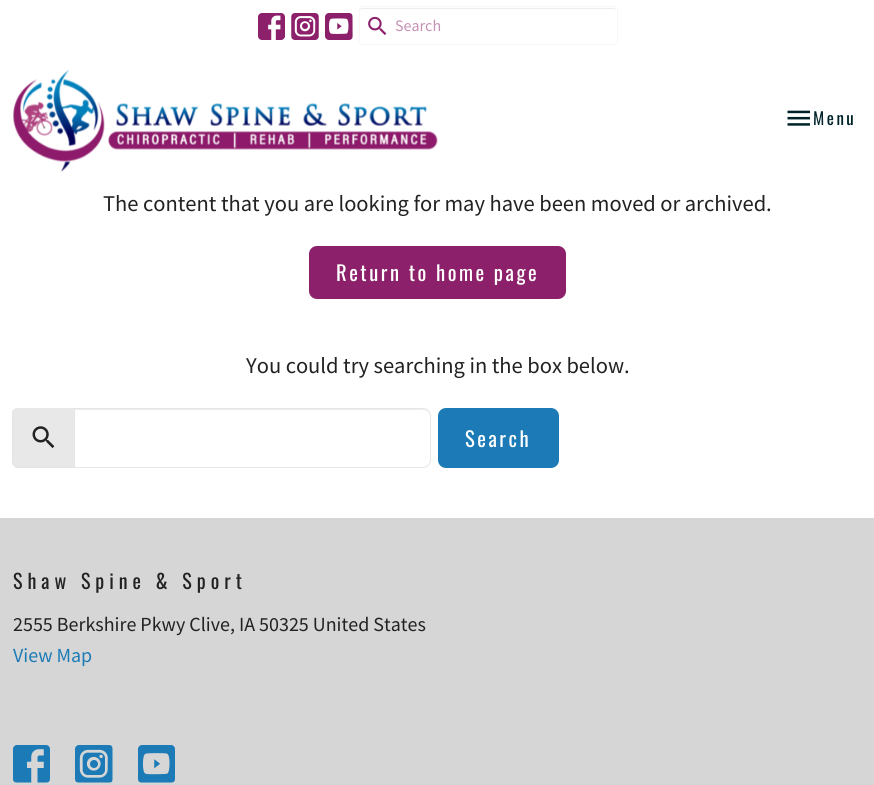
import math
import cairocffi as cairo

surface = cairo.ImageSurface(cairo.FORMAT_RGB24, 874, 785)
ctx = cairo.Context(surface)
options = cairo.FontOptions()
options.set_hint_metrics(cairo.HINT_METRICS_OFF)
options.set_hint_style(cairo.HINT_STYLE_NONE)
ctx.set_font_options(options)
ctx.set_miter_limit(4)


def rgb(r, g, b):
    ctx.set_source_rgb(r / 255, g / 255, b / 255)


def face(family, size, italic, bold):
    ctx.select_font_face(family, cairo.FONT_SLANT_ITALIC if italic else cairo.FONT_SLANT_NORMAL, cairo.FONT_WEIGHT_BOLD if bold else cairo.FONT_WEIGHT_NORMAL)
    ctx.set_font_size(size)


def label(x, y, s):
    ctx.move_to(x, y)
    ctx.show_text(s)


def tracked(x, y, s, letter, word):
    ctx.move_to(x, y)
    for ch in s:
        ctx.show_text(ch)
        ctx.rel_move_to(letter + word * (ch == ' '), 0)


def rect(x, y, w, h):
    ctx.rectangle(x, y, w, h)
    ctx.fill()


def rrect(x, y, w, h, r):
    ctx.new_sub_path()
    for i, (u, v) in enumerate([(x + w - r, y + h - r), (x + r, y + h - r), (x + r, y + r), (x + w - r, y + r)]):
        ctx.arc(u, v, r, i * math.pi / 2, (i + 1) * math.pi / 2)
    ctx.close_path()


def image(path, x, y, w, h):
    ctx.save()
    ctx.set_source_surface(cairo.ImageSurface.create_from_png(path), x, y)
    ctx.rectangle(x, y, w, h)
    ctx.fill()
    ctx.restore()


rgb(255, 255, 255)
ctx.paint()
image('image0.png', 258, 13, 27, 27)
image('image1.png', 291, 13, 28, 27)
image('image2.png', 325, 13, 28, 27)
rgb(236, 236, 236)
ctx.new_path()
ctx.move_to(362, 9)
ctx.line_to(614, 9)
ctx.curve_to(615, 9, 616, 10, 616, 11)
ctx.curve_to(616, 9, 615, 8, 614, 8)
ctx.line_to(362, 8)
ctx.line_to(360, 9)
ctx.line_to(360, 11)
ctx.curve_to(360, 10, 361, 9, 362, 9)
ctx.close_path()
ctx.fill()
rrect(359.5, 6.5, 258, 38, 3.5)
rgb(247, 247, 247)
ctx.set_line_width(1)
ctx.stroke()
image('image3.png', 368, 16, 19, 19)
face('Source Sans Pro', 16, 0, 0)
rgb(198, 144, 181)
label(395, 31, 'Search')
image('image4.png', 13, 70, 425, 102)
image('image5.png', 787, 110, 23, 16)
face('Oswald', 17, 0, 0)
rgb(0, 35, 41)
tracked(813, 125, 'Menu', 2.5, 0)
face('Source Sans Pro', 22.5, 0, 0)
rgb(34, 34, 34)
label(103, 211, 'The content that you are looking for may have been moved or archived.')
rgb(140, 32, 106)
rrect(309, 246, 257, 53, 8)
ctx.fill()
face('Oswald', 20.6, 0, 0)
rgb(255, 255, 255)
tracked(336, 281, 'Return to home page', 2.5, 0)
face('Source Sans Pro', 22.5, 0, 0)
rgb(34, 34, 34)
label(246, 373, 'You could try searching in the box below.')
rgb(232, 232, 232)
ctx.new_path()
ctx.move_to(18, 408)
ctx.line_to(74, 408)
ctx.line_to(74, 468)
ctx.line_to(18, 468)
ctx.curve_to(15, 468, 13, 466, 13, 463)
ctx.line_to(13, 413)
ctx.curve_to(13, 410, 15, 408, 18, 408)
ctx.close_path()
ctx.fill()
rgb(230, 230, 230)
ctx.set_fill_rule(cairo.FILL_RULE_EVEN_ODD)
ctx.new_path()
ctx.move_to(18, 408)
ctx.line_to(74, 408)
ctx.line_to(74, 468)
ctx.line_to(18, 468)
ctx.curve_to(15, 468, 12, 465, 12, 462)
ctx.line_to(12, 412)
ctx.curve_to(12, 410, 15, 408, 18, 408)
ctx.close_path()
ctx.move_to(18, 409)
ctx.line_to(74, 409)
ctx.line_to(74, 466)
ctx.line_to(18, 466)
ctx.curve_to(15, 466, 14, 465, 14, 462)
ctx.line_to(14, 412)
ctx.curve_to(14, 410, 15, 409, 18, 409)
ctx.close_path()
ctx.fill()
image('image6.png', 32, 426, 23, 22)
rgb(236, 236, 236)
ctx.set_fill_rule(cairo.FILL_RULE_WINDING)
ctx.new_path()
ctx.move_to(75, 410)
ctx.line_to(424, 410)
ctx.curve_to(427, 410, 430, 413, 430, 416)
ctx.curve_to(430, 412, 428, 409, 424, 409)
ctx.line_to(75, 409)
ctx.close_path()
ctx.fill()
ctx.new_path()
ctx.move_to(74.5, 408.5)
ctx.line_to(423, 408.5)
ctx.curve_to(427, 408.5, 430.5, 412, 430.5, 416)
ctx.line_to(430.5, 460)
ctx.curve_to(430.5, 464, 427, 467.5, 423, 467.5)
ctx.line_to(74.5, 467.5)
ctx.close_path()
rgb(230, 230, 230)
ctx.stroke()
rgb(28, 123, 182)
rrect(438, 408, 121, 60, 8)
ctx.fill()
face('Oswald', 20.6, 0, 0)
rgb(255, 255, 255)
tracked(465, 447, 'Search', 2.5, 0)
rgb(214, 214, 214)
rect(0, 518, 874, 267)
face('Oswald', 20, 0, 0)
rgb(34, 34, 34)
tracked(13, 589, 'Shaw Spine & Sport', 5, 0)
face('Source Sans Pro', 20, 0, 0)
label(13, 631, '2555 Berkshire Pkwy Clive, IA 50325 United States')
rgb(28, 123, 182)
label(13, 662, 'View Map')
image('image7.png', 13, 745, 37, 38)
image('image8.png', 75, 745, 38, 38)
image('image9.png', 138, 745, 37, 38)
surface.write_to_png('render.png')
